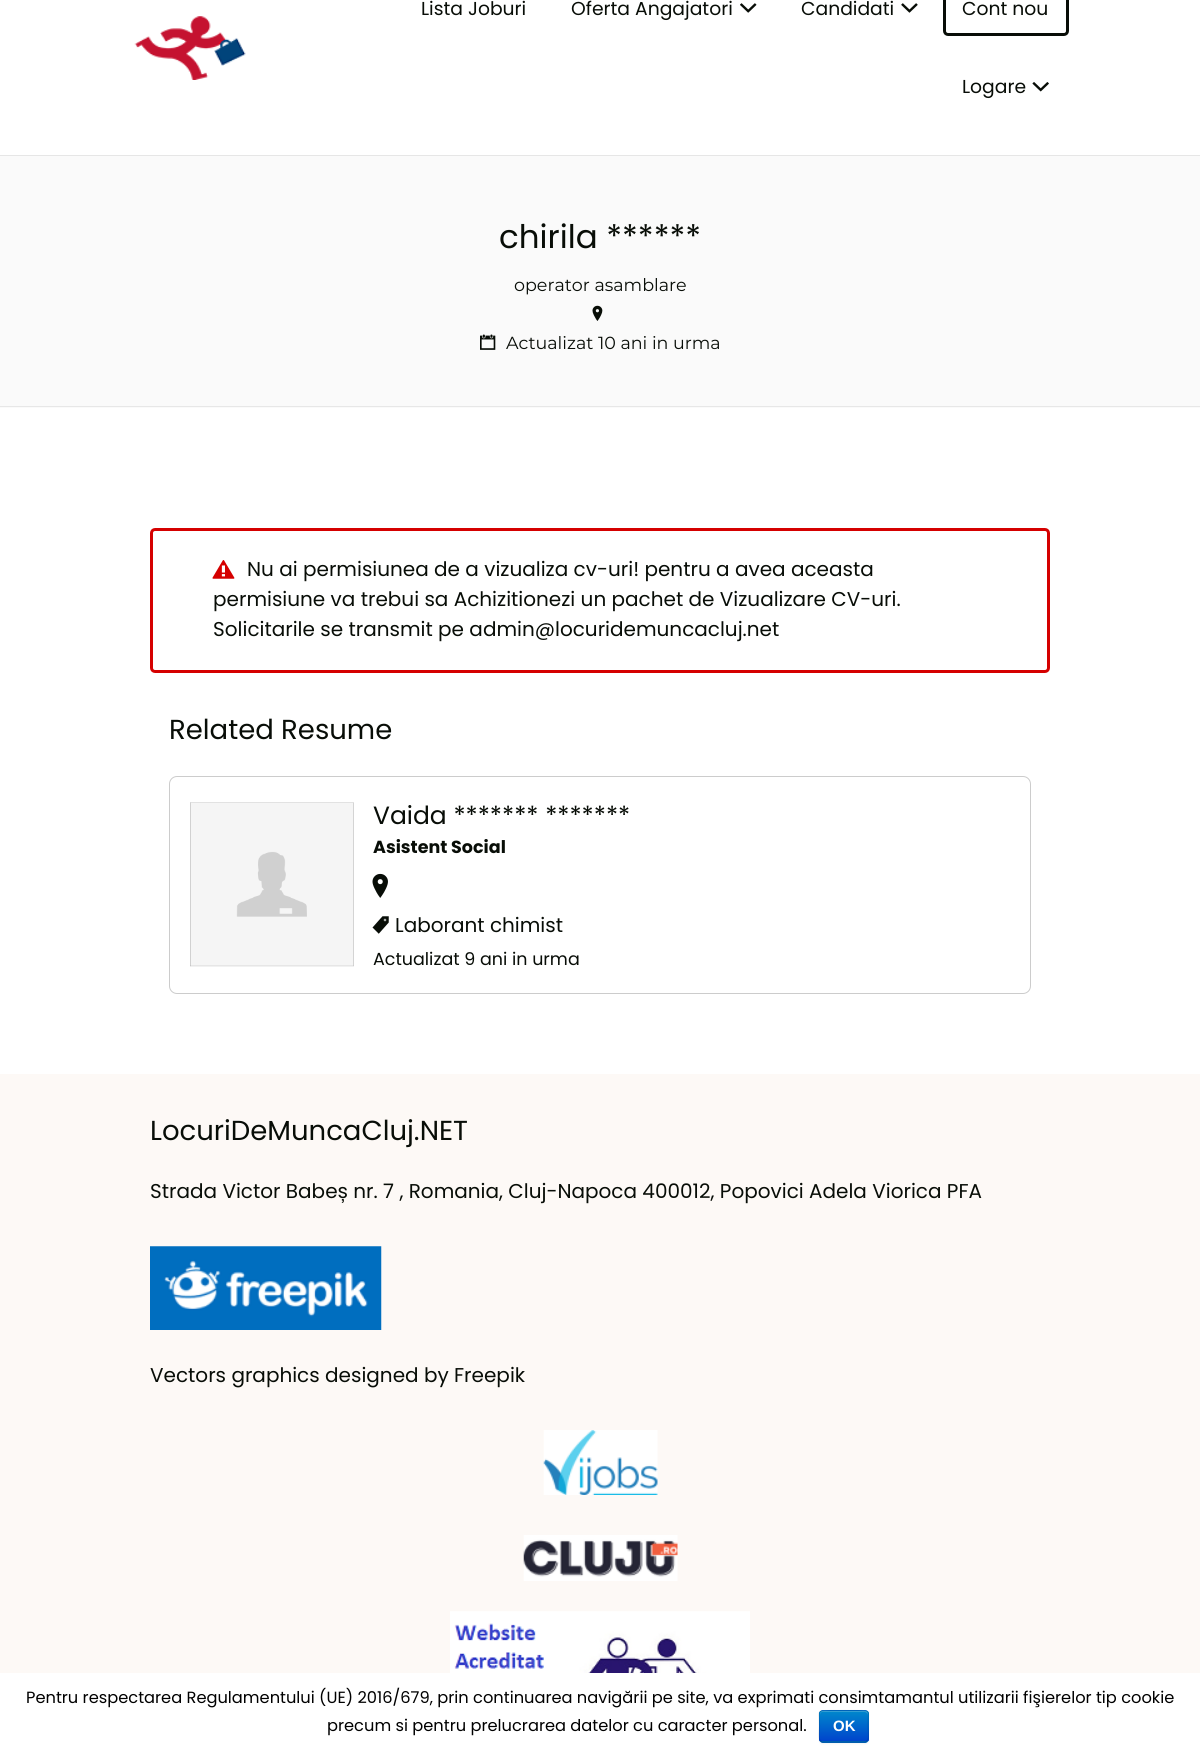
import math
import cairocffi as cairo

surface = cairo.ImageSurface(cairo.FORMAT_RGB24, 1200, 1755)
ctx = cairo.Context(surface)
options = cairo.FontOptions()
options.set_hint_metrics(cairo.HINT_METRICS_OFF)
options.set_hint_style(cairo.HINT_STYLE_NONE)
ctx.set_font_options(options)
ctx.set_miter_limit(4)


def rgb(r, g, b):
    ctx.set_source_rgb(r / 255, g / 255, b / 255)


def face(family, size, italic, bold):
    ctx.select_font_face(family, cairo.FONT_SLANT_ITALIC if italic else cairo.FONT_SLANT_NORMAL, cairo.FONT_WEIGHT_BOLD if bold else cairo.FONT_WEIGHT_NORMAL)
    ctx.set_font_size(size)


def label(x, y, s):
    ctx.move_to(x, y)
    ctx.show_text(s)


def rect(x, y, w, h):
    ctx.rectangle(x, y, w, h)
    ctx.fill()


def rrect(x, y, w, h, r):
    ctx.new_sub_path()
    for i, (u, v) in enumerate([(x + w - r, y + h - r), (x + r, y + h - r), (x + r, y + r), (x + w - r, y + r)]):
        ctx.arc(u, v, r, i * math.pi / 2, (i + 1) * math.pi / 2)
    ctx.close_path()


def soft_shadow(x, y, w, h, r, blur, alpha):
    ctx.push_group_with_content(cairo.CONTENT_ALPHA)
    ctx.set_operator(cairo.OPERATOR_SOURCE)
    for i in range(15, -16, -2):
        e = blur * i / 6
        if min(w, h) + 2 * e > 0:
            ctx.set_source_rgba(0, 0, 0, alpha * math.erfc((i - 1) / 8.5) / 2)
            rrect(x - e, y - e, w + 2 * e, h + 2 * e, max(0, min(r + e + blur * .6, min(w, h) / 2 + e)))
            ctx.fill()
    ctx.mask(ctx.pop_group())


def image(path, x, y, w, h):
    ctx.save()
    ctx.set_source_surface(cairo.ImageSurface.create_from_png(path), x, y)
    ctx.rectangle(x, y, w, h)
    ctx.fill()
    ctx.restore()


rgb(255, 255, 255)
ctx.paint()
rgb(230, 230, 230)
rect(0, 155, 1200, 1)
image('image0.png', 134, 16, 112, 64)
face('Poppins', 18.75, 0, 0)
rgb(8, 13, 7)
label(421, 15, 'Lista Joburi')
label(571, 15, 'Oferta Angajatori')
image('image1.png', 740, 3, 17, 10)
label(801, 15, 'Candidati')
image('image2.png', 901, 3, 17, 10)
rrect(944.5, -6.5, 123, 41, 3.5)
ctx.set_line_width(3)
ctx.stroke()
label(962, 15, 'Cont nou')
label(962, 93, 'Logare')
image('image3.png', 1032, 82, 17, 10)
rgb(250, 250, 250)
rect(0, 156, 1200, 252)
rgb(231, 231, 231)
rect(0, 406, 1200, 1)
face('Poppins', 32.5, 0, 0)
rgb(8, 13, 7)
label(499, 248, 'chirila ******')
face('Montserrat', 17.5, 0, 0)
label(514, 291, 'operator asamblare')
image('image4.png', 592, 305, 11, 16)
image('image5.png', 480, 334, 16, 16)
label(506, 349, 'Actualizat 10 ani in urma')
rrect(151.5, 529.5, 897, 142, 3.5)
rgb(213, 0, 0)
ctx.stroke()
image('image6.png', 212, 560, 23, 19)
face('Poppins', 20, 0, 0)
rgb(8, 13, 7)
label(247, 576, 'Nu ai permisiunea de a vizualiza cv-uri! pentru a avea aceasta')
label(213, 606, 'permisiune va trebui sa Achizitionezi un pachet de Vizualizare CV-uri.')
label(213, 636, 'Solicitarile se transmit pe admin@locuridemuncacluj.net')
face('Poppins', 27.5, 0, 0)
label(169, 739, 'Related Resume')
rrect(169.5, 776.5, 861, 217, 7.5)
rgb(204, 204, 204)
ctx.set_line_width(1)
ctx.stroke()
image('image7.png', 190, 802, 164, 165)
face('Poppins', 25, 0, 0)
rgb(8, 13, 7)
label(373, 824, 'Vaida ******* *******')
face('Poppins', 17.5, 0, 1)
label(373, 853, 'Asistent Social')
image('image8.png', 372, 873, 16, 25)
image('image9.png', 372, 916, 17, 18)
face('Poppins', 20, 0, 0)
label(395, 932, 'Laborant chimist')
face('Poppins', 17.5, 0, 0)
label(373, 965, 'Actualizat 9 ani in urma')
rgb(253, 249, 246)
rect(0, 1074, 1200, 599)
face('Poppins', 27.5, 0, 0)
rgb(8, 13, 7)
label(150, 1140, 'LocuriDeMuncaCluj.NET')
face('Poppins', 20, 0, 0)
label(150, 1198, 'Strada Victor Babeș nr. 7 , Romania, Cluj-Napoca 400012, Popovici Adela Viorica PFA')
image('image10.png', 150, 1246, 232, 84)
label(150, 1382, 'Vectors graphics designed by Freepik')
image('image11.png', 543, 1430, 115, 65)
image('image12.png', 523, 1535, 155, 46)
image('image13.png', 450, 1611, 300, 62)
face('Poppins', 16.25, 0, 0)
rgb(0, 0, 0)
label(26, 1703, 'Pentru respectarea Regulamentului (UE) 2016/679, prin continuarea navigării pe site, va exprimati consimtamantul utilizarii fişierelor tip cookie')
label(327, 1731, 'precum si pentru prelucrarea datelor cu caracter personal.')
rgb(0, 0, 0)
soft_shadow(819, 1711, 50, 33, 4, 1, 0.05)
rgb(0, 109, 204)
rrect(819, 1710, 50, 33, 4)
ctx.fill()
ctx.save()
rrect(819, 1710, 50, 33, 4)
ctx.clip()
gradient = cairo.LinearGradient(844, 1711, 844, 1741)
gradient.add_color_stop_rgba(0, 0, 0.533, 0.8, 1)
gradient.add_color_stop_rgba(1, 0, 0.267, 0.8, 1)
ctx.set_source(gradient)
rect(819, 1711, 50, 30)
ctx.restore()
ctx.set_source_rgba(1, 1, 1, 0.2)
ctx.new_path()
ctx.move_to(822, 1712)
ctx.line_to(865, 1712)
ctx.curve_to(866, 1712, 868, 1714, 868, 1715)
ctx.curve_to(868, 1709, 863, 1711, 858, 1711)
ctx.line_to(830, 1711)
ctx.curve_to(825, 1711, 820, 1709, 820, 1715)
ctx.curve_to(820, 1714, 821, 1712, 822, 1712)
ctx.close_path()
ctx.fill()
ctx.new_path()
ctx.move_to(867, 1741)
ctx.line_to(865.5, 1742)
ctx.line_to(822, 1742)
ctx.line_to(820.5, 1741)
ctx.set_source_rgba(0, 0, 0, 0.25)
ctx.set_line_width(1.2)
ctx.stroke()
ctx.new_path()
ctx.move_to(820.5, 1741)
ctx.curve_to(818, 1739, 819.5, 1729, 819.5, 1726)
ctx.curve_to(819.5, 1711, 816, 1710.5, 829.5, 1710.5)
ctx.line_to(858, 1710.5)
ctx.curve_to(871.5, 1710.5, 868, 1711, 868, 1726)
ctx.curve_to(868, 1729, 869.5, 1739, 867, 1741)
ctx.set_source_rgba(0, 0, 0, 0.1)
ctx.stroke()
face('Liberation Sans', 15, 0, 1)
rgb(255, 255, 255)
label(833, 1731, 'OK')
surface.write_to_png('render.png')
